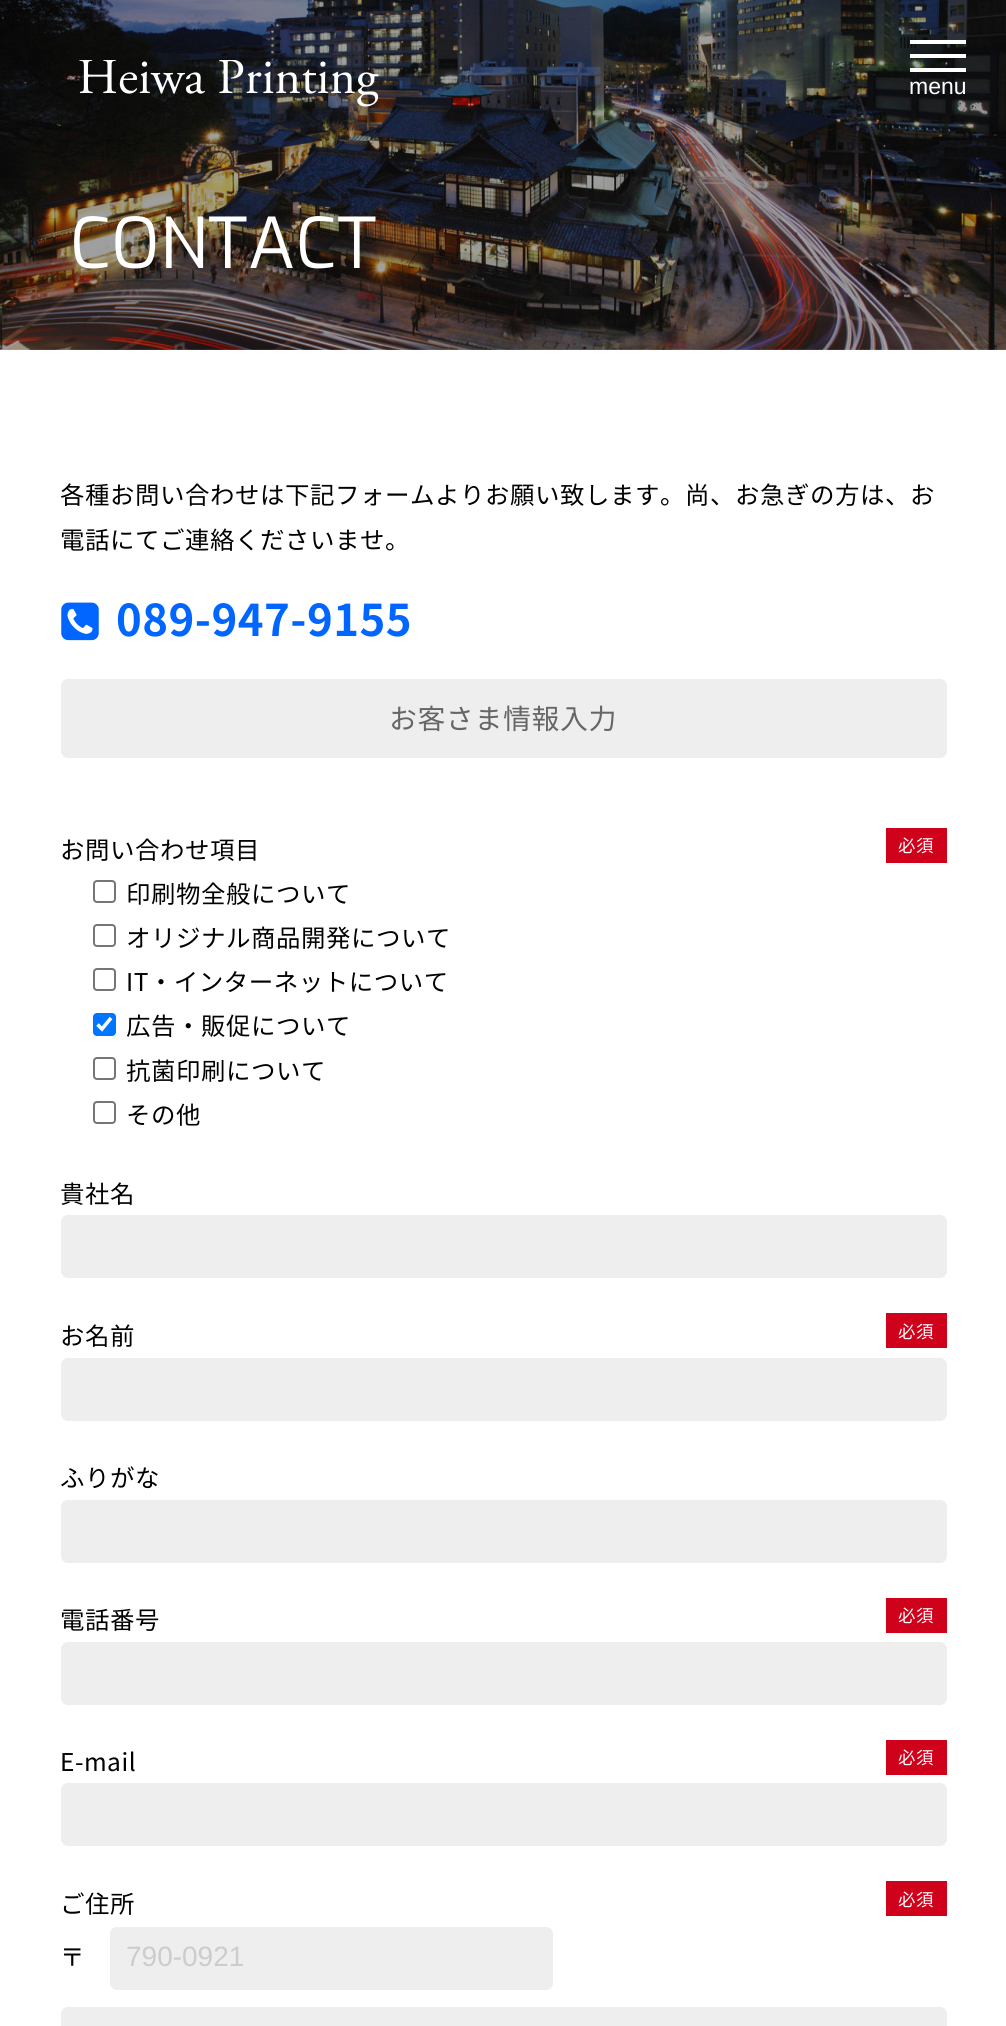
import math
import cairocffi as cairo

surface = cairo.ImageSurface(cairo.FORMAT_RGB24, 1006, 2026)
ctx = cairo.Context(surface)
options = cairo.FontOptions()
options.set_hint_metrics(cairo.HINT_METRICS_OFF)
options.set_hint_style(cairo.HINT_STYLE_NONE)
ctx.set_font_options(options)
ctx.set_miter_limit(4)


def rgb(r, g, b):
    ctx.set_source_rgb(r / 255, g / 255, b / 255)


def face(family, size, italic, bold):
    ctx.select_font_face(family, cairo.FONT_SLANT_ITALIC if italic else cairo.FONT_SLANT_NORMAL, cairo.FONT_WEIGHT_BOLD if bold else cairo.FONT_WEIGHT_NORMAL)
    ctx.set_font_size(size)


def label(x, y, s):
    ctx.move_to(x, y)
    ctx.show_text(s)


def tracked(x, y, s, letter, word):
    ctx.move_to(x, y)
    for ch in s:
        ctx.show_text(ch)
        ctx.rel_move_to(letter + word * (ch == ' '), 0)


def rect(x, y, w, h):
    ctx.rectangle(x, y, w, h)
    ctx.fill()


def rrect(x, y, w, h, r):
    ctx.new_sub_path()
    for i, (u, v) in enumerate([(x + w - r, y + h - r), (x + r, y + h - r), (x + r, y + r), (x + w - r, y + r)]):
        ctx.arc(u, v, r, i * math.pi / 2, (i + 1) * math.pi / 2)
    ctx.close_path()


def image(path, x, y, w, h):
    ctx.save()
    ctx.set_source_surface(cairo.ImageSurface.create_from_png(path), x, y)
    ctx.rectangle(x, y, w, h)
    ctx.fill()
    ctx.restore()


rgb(255, 255, 255)
ctx.paint()
image('image1.png', 0, 0, 1006, 350)
image('image0.png', 79, 60, 300, 47)
rgb(255, 255, 255)
rect(910, 54, 56, 4)
rect(910, 40, 56, 4)
rect(910, 68, 56, 4)
face('Liberation Sans', 23, 0, 0)
label(909, 94, 'menu')
face('Exo', 70, 0, 0)
tracked(70, 268, 'CONTACT', 0.5, 0)
face('Noto Sans JP', 24.5, 0, 0)
rgb(0, 0, 0)
tracked(60, 504, '各種お問い合わせは下記フォームよりお願い致します。尚、お急ぎの方は、お', 0.5, 0)
tracked(60, 549, '電話にてご連絡くださいませ。', 0.5, 0)
image('image2.png', 61, 602, 38, 39)
face('Noto Sans JP', 43.75, 0, 1)
rgb(0, 102, 255)
tracked(116, 636, '089-947-9155', 0.5, 0)
rgb(238, 238, 238)
rrect(61, 679, 886, 79, 7)
ctx.fill()
face('Noto Sans JP', 28, 0, 0)
rgb(102, 102, 102)
tracked(389, 729, 'お客さま情報入力', 0.5, 0)
face('Noto Sans JP', 24.5, 0, 0)
rgb(0, 0, 0)
tracked(60, 859, 'お問い合わせ項目', 0.5, 0)
rgb(208, 1, 27)
rect(886, 828, 61, 35)
face('Noto Sans JP', 17.5, 0, 0)
rgb(255, 255, 255)
tracked(898, 852, '必須', 0.5, 0)
rrect(94, 881, 21, 21, 3)
rgb(118, 118, 118)
ctx.stroke()
face('Noto Sans JP', 24.5, 0, 0)
rgb(0, 0, 0)
tracked(126, 903, '印刷物全般について', 0.5, 0)
rrect(94, 925, 21, 21, 3)
rgb(118, 118, 118)
ctx.stroke()
rgb(0, 0, 0)
tracked(126, 947, 'オリジナル商品開発について', 0.5, 0)
rrect(94, 969, 21, 21, 3)
rgb(118, 118, 118)
ctx.stroke()
rgb(0, 0, 0)
tracked(126, 991, 'IT・インターネットについて', 0.5, 0)
rgb(0, 117, 255)
rrect(93, 1013, 23, 23, 4)
ctx.fill()
ctx.new_path()
ctx.move_to(97.5, 1024.5)
ctx.line_to(102, 1029)
ctx.line_to(111, 1018)
rgb(255, 255, 255)
ctx.set_line_width(3.6)
ctx.stroke()
rgb(0, 0, 0)
tracked(126, 1035, '広告・販促について', 0.5, 0)
rrect(94, 1058, 21, 21, 3)
rgb(118, 118, 118)
ctx.set_line_width(2)
ctx.stroke()
rgb(0, 0, 0)
tracked(126, 1080, '抗菌印刷について', 0.5, 0)
rrect(94, 1102, 21, 21, 3)
rgb(118, 118, 118)
ctx.stroke()
rgb(0, 0, 0)
tracked(126, 1124, 'その他', 0.5, 0)
tracked(60, 1203, '貴社名', 0.5, 0)
rgb(238, 238, 238)
rrect(62, 1216, 884, 61, 6)
ctx.fill_preserve()
ctx.stroke()
rgb(0, 0, 0)
tracked(60, 1345, 'お名前', 0.5, 0)
rgb(208, 1, 27)
rect(886, 1313, 61, 35)
face('Noto Sans JP', 17.5, 0, 0)
rgb(255, 255, 255)
tracked(898, 1338, '必須', 0.5, 0)
rgb(238, 238, 238)
rrect(62, 1359, 884, 61, 6)
ctx.fill_preserve()
ctx.stroke()
face('Noto Sans JP', 24.5, 0, 0)
rgb(0, 0, 0)
tracked(60, 1487, 'ふりがな', 0.5, 0)
rgb(238, 238, 238)
rrect(62, 1501, 884, 61, 6)
ctx.fill_preserve()
ctx.stroke()
rgb(0, 0, 0)
tracked(60, 1629, '電話番号', 0.5, 0)
rgb(208, 1, 27)
rect(886, 1598, 61, 35)
face('Noto Sans JP', 17.5, 0, 0)
rgb(255, 255, 255)
tracked(898, 1622, '必須', 0.5, 0)
rgb(238, 238, 238)
rrect(62, 1643, 884, 61, 6)
ctx.fill_preserve()
ctx.stroke()
face('Noto Sans JP', 24.5, 0, 0)
rgb(0, 0, 0)
tracked(60, 1771, 'E-mail', 0.5, 0)
rgb(208, 1, 27)
rect(886, 1740, 61, 35)
face('Noto Sans JP', 17.5, 0, 0)
rgb(255, 255, 255)
tracked(898, 1764, '必須', 0.5, 0)
rgb(238, 238, 238)
rrect(62, 1784, 884, 61, 6)
ctx.fill_preserve()
ctx.stroke()
face('Noto Sans JP', 24.5, 0, 0)
rgb(0, 0, 0)
tracked(60, 1913, 'ご住所', 0.5, 0)
rgb(208, 1, 27)
rect(886, 1881, 61, 35)
face('Noto Sans JP', 17.5, 0, 0)
rgb(255, 255, 255)
tracked(898, 1906, '必須', 0.5, 0)
face('Noto Sans JP', 24.5, 0, 0)
rgb(0, 0, 0)
tracked(60, 1966, '〒', 0.5, 0)
rgb(238, 238, 238)
rrect(111, 1928, 441, 61, 6)
ctx.fill_preserve()
ctx.stroke()
face('Liberation Sans', 28, 0, 0)
rgb(204, 204, 204)
label(126, 1966, '790-0921')
rgb(238, 238, 238)
rrect(62, 2008, 884, 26, 6)
ctx.fill_preserve()
ctx.stroke()
surface.write_to_png('render.png')
